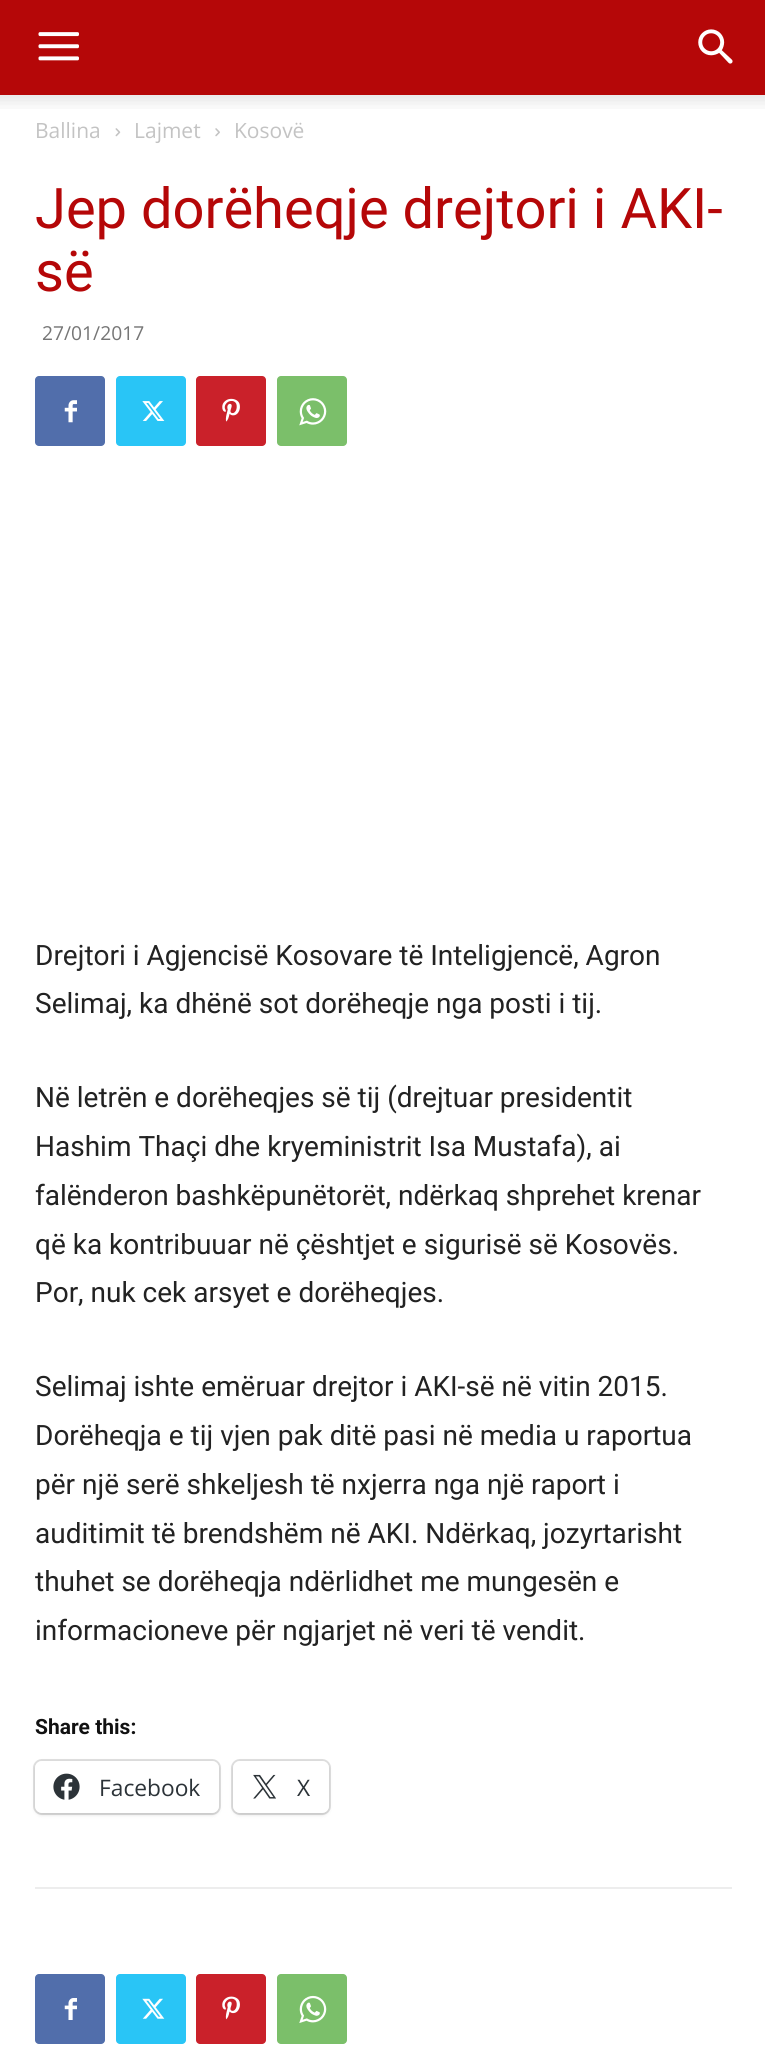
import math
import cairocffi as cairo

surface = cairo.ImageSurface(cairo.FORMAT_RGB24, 765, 2048)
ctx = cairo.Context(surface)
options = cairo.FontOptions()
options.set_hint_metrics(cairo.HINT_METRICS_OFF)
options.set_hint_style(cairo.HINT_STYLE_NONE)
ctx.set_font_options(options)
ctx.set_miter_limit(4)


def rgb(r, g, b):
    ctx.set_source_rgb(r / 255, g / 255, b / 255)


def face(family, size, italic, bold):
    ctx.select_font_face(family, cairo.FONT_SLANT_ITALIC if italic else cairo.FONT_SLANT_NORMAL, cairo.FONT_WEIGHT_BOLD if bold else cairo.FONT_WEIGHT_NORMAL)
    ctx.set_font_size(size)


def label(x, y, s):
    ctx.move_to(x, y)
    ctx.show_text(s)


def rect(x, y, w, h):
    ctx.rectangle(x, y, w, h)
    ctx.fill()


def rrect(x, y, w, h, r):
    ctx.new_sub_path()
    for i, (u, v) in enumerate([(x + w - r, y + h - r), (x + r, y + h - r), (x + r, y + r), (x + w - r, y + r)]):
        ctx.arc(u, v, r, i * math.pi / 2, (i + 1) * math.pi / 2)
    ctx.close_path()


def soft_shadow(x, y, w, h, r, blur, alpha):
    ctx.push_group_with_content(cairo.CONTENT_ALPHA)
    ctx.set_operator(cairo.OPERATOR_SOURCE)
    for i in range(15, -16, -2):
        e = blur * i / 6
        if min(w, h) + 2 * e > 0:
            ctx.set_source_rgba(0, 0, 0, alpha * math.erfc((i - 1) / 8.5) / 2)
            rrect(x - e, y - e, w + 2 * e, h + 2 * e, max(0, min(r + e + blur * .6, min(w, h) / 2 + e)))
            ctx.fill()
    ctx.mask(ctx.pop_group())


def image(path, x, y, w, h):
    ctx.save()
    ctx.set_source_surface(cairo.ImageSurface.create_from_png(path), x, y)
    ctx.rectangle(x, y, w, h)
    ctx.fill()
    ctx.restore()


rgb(255, 255, 255)
ctx.paint()
rgb(181, 7, 8)
rect(0, 0, 765, 95)
image('image0.png', 38, 32, 41, 29)
image('image1.png', 698, 29, 35, 35)
image('image2.png', 0, 95, 765, 14)
face('Open Sans', 21, 0, 0)
rgb(195, 195, 195)
label(35, 138, 'Ballina')
image('image3.png', 115, 128, 6, 9)
label(134, 138, 'Lajmet')
image('image4.png', 215, 128, 5, 9)
label(234, 138, 'Kosovë')
face('Roboto', 56, 0, 0)
rgb(181, 7, 8)
label(35, 228, 'Jep dorëheqje drejtori i AKI-')
label(35, 291, 'së')
face('Open Sans', 19.25, 0, 0)
rgb(118, 118, 118)
label(42, 340, '27/01/2017')
rgb(81, 110, 171)
rrect(35, 376, 70, 70, 4)
ctx.fill()
image('image5.png', 64, 400, 13, 23)
rgb(41, 197, 246)
rrect(116, 376, 70, 70, 4)
ctx.fill()
image('image6.png', 142, 401, 23, 20)
rgb(202, 33, 42)
rrect(196, 376, 70, 70, 4)
ctx.fill()
image('image7.png', 222, 398, 18, 24)
rgb(123, 191, 106)
rrect(277, 376, 70, 70, 4)
ctx.fill()
image('image8.png', 299, 398, 28, 28)
face('Roboto', 28, 0, 0)
rgb(34, 34, 34)
label(35, 965, 'Drejtori i Agjencisë Kosovare të Inteligjencë, Agron')
label(35, 1013, 'Selimaj, ka dhënë sot dorëheqje nga posti i tij.')
label(35, 1107, 'Në letrën e dorëheqjes së tij (drejtuar presidentit')
label(35, 1156, 'Hashim Thaçi dhe kryeministrit Isa Mustafa), ai')
label(35, 1205, 'falënderon bashkëpunëtorët, ndërkaq shprehet krenar')
label(35, 1254, 'që ka kontribuuar në çështjet e sigurisë së Kosovës.')
label(35, 1302, 'Por, nuk cek arsyet e dorëheqjes.')
label(35, 1396, 'Selimaj ishte emëruar drejtor i AKI-së në vitin 2015.')
label(35, 1445, 'Dorëheqja e tij vjen pak ditë pasi në media u raportua')
label(35, 1494, 'për një serë shkeljesh të nxjerra nga një raport i')
label(35, 1543, 'auditimit të brendshëm në AKI. Ndërkaq, jozyrtarisht')
label(35, 1591, 'thuhet se dorëheqja ndërlidhet me mungesën e')
label(35, 1640, 'informacioneve për ngjarjet në veri të vendit.')
face('Roboto', 21, 0, 1)
rgb(17, 17, 17)
label(35, 1734, 'Share this:')
rrect(34, 1760, 186, 54, 8)
rgb(224, 224, 224)
ctx.stroke()
rgb(0, 0, 0)
soft_shadow(35, 1762, 184, 53, 7, 2, 0.12)
rgb(255, 255, 255)
rrect(35, 1761, 184, 52, 7)
ctx.fill()
image('image9.png', 53, 1773, 27, 27)
face('Open Sans', 22.75, 0, 0)
rgb(44, 51, 56)
label(99, 1796, 'Facebook')
rrect(232, 1760, 98, 54, 8)
rgb(224, 224, 224)
ctx.stroke()
rgb(0, 0, 0)
soft_shadow(233, 1762, 96, 53, 7, 2, 0.12)
rgb(255, 255, 255)
rrect(233, 1761, 96, 52, 7)
ctx.fill()
image('image10.png', 253, 1774, 23, 25)
rgb(44, 51, 56)
label(297, 1796, 'X')
rgb(237, 237, 237)
rect(35, 1887, 697, 2)
rgb(81, 110, 171)
rrect(35, 1974, 70, 70, 4)
ctx.fill()
image('image11.png', 64, 1998, 13, 22)
rgb(41, 197, 246)
rrect(116, 1974, 70, 70, 4)
ctx.fill()
image('image12.png', 142, 1998, 23, 21)
rgb(202, 33, 42)
rrect(196, 1974, 70, 70, 4)
ctx.fill()
image('image13.png', 222, 1996, 18, 24)
rgb(123, 191, 106)
rrect(277, 1974, 70, 70, 4)
ctx.fill()
image('image14.png', 299, 1995, 28, 28)
surface.write_to_png('render.png')
